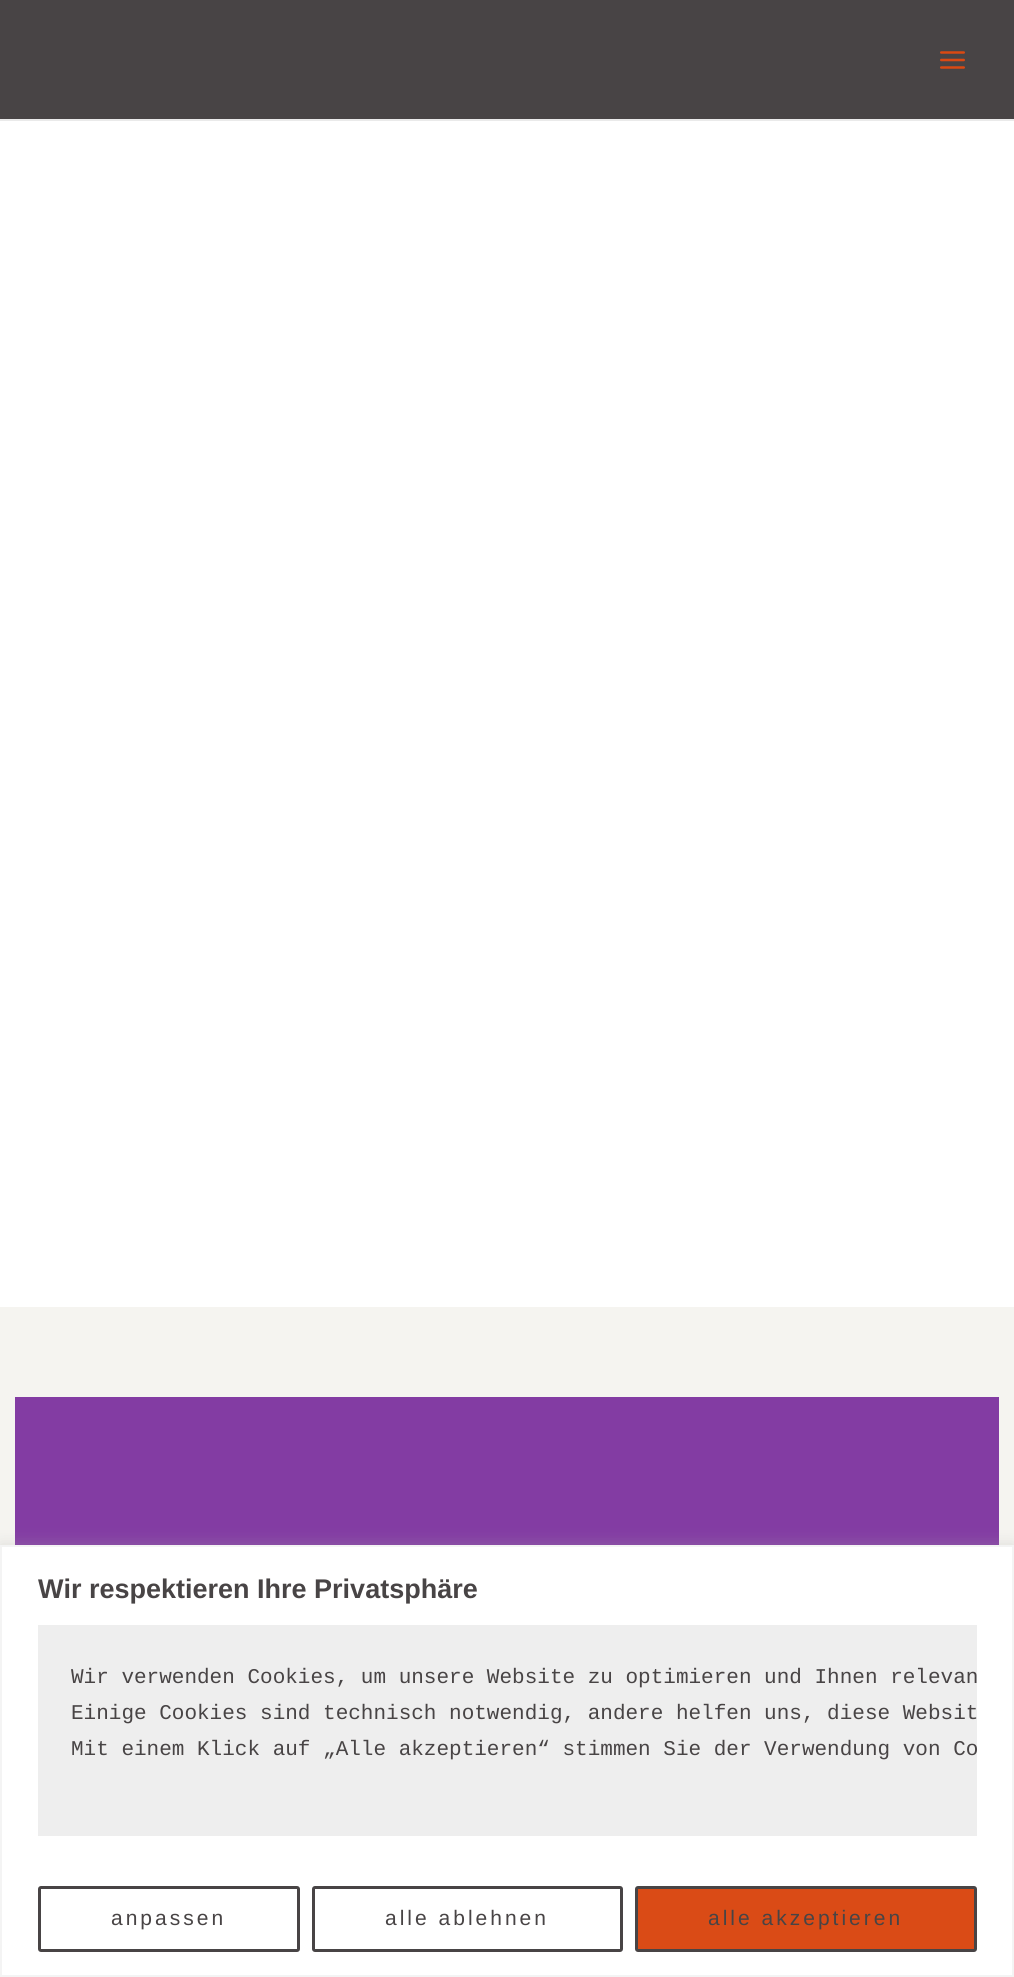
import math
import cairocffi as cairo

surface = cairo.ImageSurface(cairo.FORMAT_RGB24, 1014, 1977)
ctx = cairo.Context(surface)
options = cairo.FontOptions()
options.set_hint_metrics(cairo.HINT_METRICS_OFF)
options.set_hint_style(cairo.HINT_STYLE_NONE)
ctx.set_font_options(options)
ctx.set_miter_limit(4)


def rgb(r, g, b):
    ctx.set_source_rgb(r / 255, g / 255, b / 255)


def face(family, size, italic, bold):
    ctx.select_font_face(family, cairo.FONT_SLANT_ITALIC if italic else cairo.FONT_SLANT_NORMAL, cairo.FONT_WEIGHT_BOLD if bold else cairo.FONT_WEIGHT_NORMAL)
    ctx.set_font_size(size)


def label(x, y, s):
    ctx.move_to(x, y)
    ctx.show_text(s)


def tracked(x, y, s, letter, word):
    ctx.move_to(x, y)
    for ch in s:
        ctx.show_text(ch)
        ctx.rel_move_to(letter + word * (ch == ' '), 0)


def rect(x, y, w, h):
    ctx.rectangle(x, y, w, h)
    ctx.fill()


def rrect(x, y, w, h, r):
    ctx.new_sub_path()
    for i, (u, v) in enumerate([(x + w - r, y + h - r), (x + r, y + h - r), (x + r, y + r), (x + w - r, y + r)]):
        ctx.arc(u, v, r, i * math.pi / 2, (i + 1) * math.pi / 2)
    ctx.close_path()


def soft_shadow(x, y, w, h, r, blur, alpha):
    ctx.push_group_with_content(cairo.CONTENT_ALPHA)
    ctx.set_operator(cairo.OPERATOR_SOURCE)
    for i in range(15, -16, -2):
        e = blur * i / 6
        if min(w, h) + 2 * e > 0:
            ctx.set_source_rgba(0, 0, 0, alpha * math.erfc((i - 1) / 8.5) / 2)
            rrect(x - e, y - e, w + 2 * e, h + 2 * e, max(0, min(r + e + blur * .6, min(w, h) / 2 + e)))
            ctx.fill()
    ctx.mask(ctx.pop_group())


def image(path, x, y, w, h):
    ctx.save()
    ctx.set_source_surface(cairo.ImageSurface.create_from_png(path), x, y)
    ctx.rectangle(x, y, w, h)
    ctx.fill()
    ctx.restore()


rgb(255, 255, 255)
ctx.paint()
rgb(72, 68, 69)
rect(0, 0, 1014, 119)
rgb(234, 234, 234)
rect(0, 119, 1014, 2)
image('image0.png', 940, 51, 25, 18)
rgb(245, 244, 240)
rect(0, 1307, 1014, 238)
rgb(131, 60, 163)
rect(15, 1397, 984, 148)
rgb(172, 171, 171)
soft_shadow(0, 1544, 1014, 432, 0, 7.5, 0.3)
rgb(255, 255, 255)
ctx.rectangle(1, 1546, 1012, 430)
ctx.fill_preserve()
rgb(244, 244, 244)
ctx.stroke()
face('Liberation Sans', 27, 0, 1)
rgb(72, 68, 69)
label(38, 1598, 'Wir respektieren Ihre Privatsphäre')
rgb(238, 238, 238)
rect(38, 1625, 939, 211)
face('Liberation Mono', 21, 0, 0)
rgb(72, 68, 69)
label(71, 1683, 'Wir verwenden Cookies, um unsere Website zu optimieren und Ihnen relevan')
label(71, 1719, 'Einige Cookies sind technisch notwendig, andere helfen uns, diese Websit')
label(71, 1755, 'Mit einem Klick auf „Alle akzeptieren“ stimmen Sie der Verwendung von Co')
rrect(39.5, 1887.5, 259, 63, 1.5)
ctx.set_line_width(3)
ctx.stroke()
face('Liberation Sans', 21, 0, 0)
tracked(111, 1925, 'anpassen', 3, 0)
rrect(313.5, 1887.5, 308, 63, 1.5)
ctx.stroke()
tracked(385, 1925, 'alle ablehnen', 3, 0)
rgb(218, 75, 22)
rrect(636.5, 1887.5, 339, 63, 1.5)
ctx.fill_preserve()
rgb(72, 68, 69)
ctx.stroke()
tracked(708, 1925, 'alle akzeptieren', 3, 0)
surface.write_to_png('render.png')
